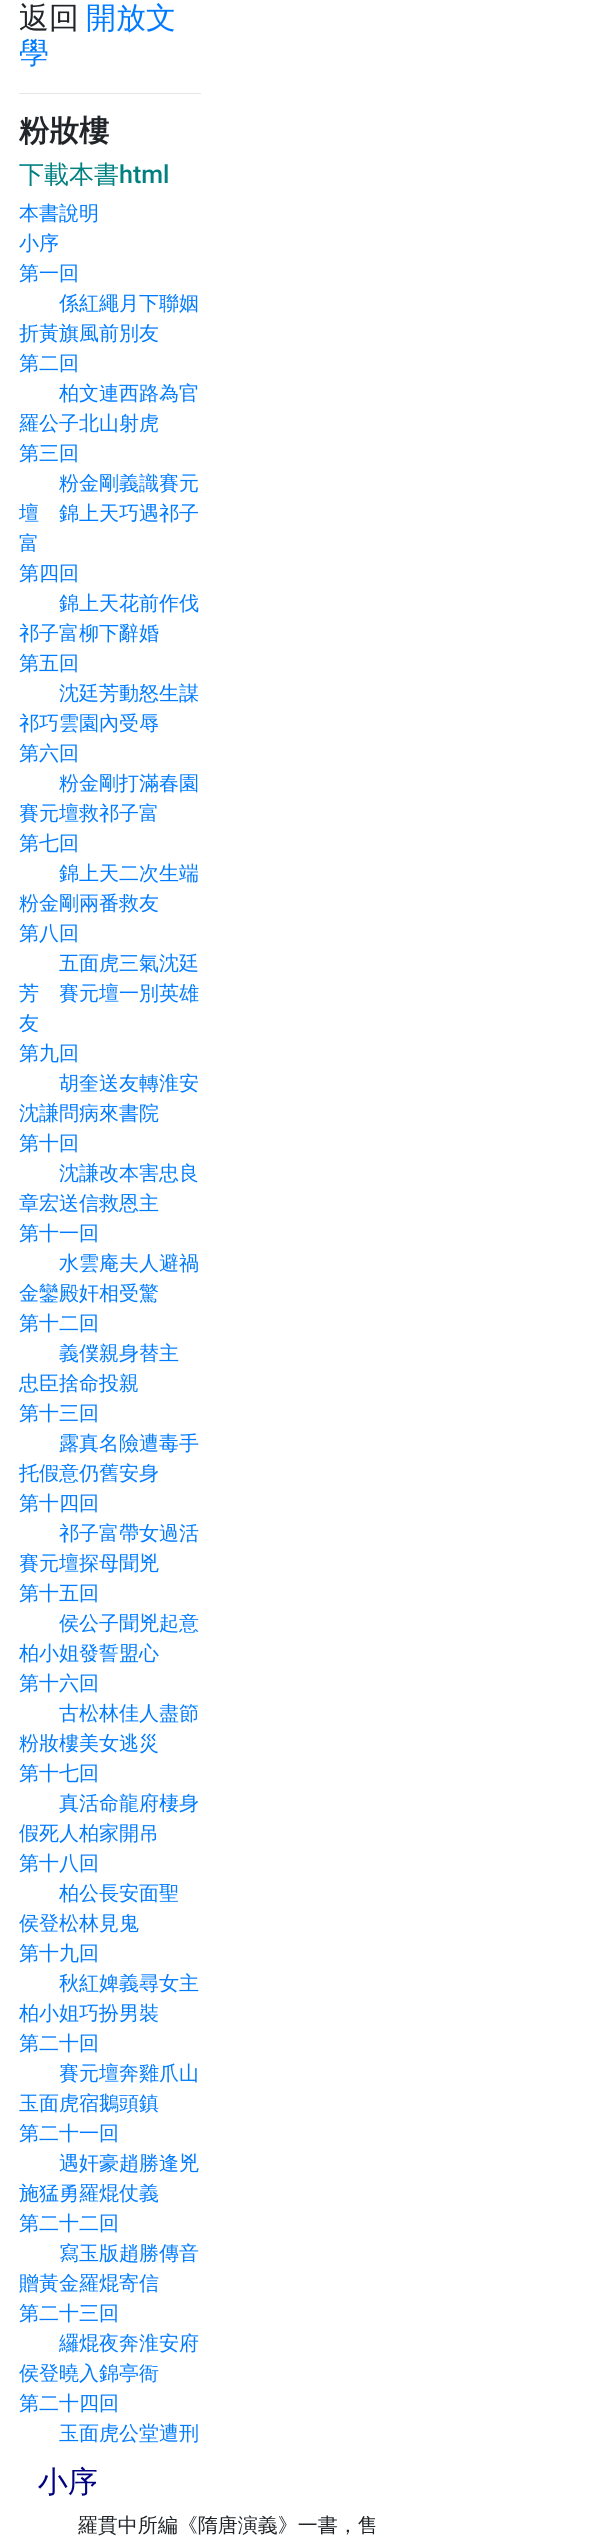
import math
import cairocffi as cairo

surface = cairo.ImageSurface(cairo.FORMAT_RGB24, 609, 2540)
ctx = cairo.Context(surface)
options = cairo.FontOptions()
options.set_hint_metrics(cairo.HINT_METRICS_OFF)
options.set_hint_style(cairo.HINT_STYLE_NONE)
ctx.set_font_options(options)
ctx.set_miter_limit(4)


def rgb(r, g, b):
    ctx.set_source_rgb(r / 255, g / 255, b / 255)


def face(family, size, italic, bold):
    ctx.select_font_face(family, cairo.FONT_SLANT_ITALIC if italic else cairo.FONT_SLANT_NORMAL, cairo.FONT_WEIGHT_BOLD if bold else cairo.FONT_WEIGHT_NORMAL)
    ctx.set_font_size(size)


def label(x, y, s):
    ctx.move_to(x, y)
    ctx.show_text(s)


def rect(x, y, w, h):
    ctx.rectangle(x, y, w, h)
    ctx.fill()


def image(path, x, y, w, h):
    ctx.save()
    ctx.set_source_surface(cairo.ImageSurface.create_from_png(path), x, y)
    ctx.rectangle(x, y, w, h)
    ctx.fill()
    ctx.restore()


rgb(255, 255, 255)
ctx.paint()
face('WenQuanYi Zen Hei Medium', 30, 0, 0)
rgb(33, 37, 41)
label(19, 28, '返回')
rgb(0, 123, 255)
label(86, 28, '開放文')
label(19, 63, '學')
rgb(230, 230, 230)
rect(19, 93, 182, 1)
face('WenQuanYi Zen Hei', 30, 0, 1)
rgb(33, 37, 41)
label(19, 141, '粉妝樓')
face('WenQuanYi Zen Hei Medium', 25, 0, 0)
rgb(0, 128, 128)
label(19, 183, '下載本書')
face('Roboto Medium', 25, 0, 0)
label(119, 183, 'html')
face('WenQuanYi Zen Hei Medium', 20, 0, 0)
rgb(0, 123, 255)
label(19, 220, '本書說明')
label(19, 250, '小序')
label(19, 280, '第一回')
label(59, 310, '係紅繩月下聯姻')
label(19, 340, '折黃旗風前別友')
label(19, 370, '第二回')
label(59, 400, '柏文連西路為官')
label(19, 430, '羅公子北山射虎')
label(19, 460, '第三回')
label(59, 490, '粉金剛義識賽元')
label(19, 520, '壇　錦上天巧遇祁子')
label(19, 550, '富')
label(19, 580, '第四回')
label(59, 610, '錦上天花前作伐')
label(19, 640, '祁子富柳下辭婚')
label(19, 670, '第五回')
label(59, 700, '沈廷芳動怒生謀')
label(19, 730, '祁巧雲園內受辱')
label(19, 760, '第六回')
label(59, 790, '粉金剛打滿春園')
label(19, 820, '賽元壇救祁子富')
label(19, 850, '第七回')
label(59, 880, '錦上天二次生端')
label(19, 910, '粉金剛兩番救友')
label(19, 940, '第八回')
label(59, 970, '五面虎三氣沈廷')
label(19, 1000, '芳　賽元壇一別英雄')
label(19, 1030, '友')
label(19, 1060, '第九回')
label(59, 1090, '胡奎送友轉淮安')
label(19, 1120, '沈謙問病來書院')
label(19, 1150, '第十回')
label(59, 1180, '沈謙改本害忠良')
label(19, 1210, '章宏送信救恩主')
label(19, 1240, '第十一回')
label(59, 1270, '水雲庵夫人避禍')
label(19, 1300, '金鑾殿奸相受驚')
label(19, 1330, '第十二回')
label(59, 1360, '義僕親身替主')
label(19, 1390, '忠臣捨命投親')
label(19, 1420, '第十三回')
label(59, 1450, '露真名險遭毒手')
label(19, 1480, '托假意仍舊安身')
label(19, 1510, '第十四回')
label(59, 1540, '祁子富帶女過活')
label(19, 1570, '賽元壇探母聞兇')
label(19, 1600, '第十五回')
label(59, 1630, '侯公子聞兇起意')
label(19, 1660, '柏小姐發誓盟心')
label(19, 1690, '第十六回')
label(59, 1720, '古松林佳人盡節')
label(19, 1750, '粉妝樓美女逃災')
label(19, 1780, '第十七回')
label(59, 1810, '真活命龍府棲身')
label(19, 1840, '假死人柏家開吊')
label(19, 1870, '第十八回')
label(59, 1900, '柏公長安面聖')
label(19, 1930, '侯登松林見鬼')
label(19, 1960, '第十九回')
label(59, 1990, '秋紅婢義尋女主')
label(19, 2020, '柏小姐巧扮男裝')
label(19, 2050, '第二十回')
label(59, 2080, '賽元壇奔雞爪山')
label(19, 2110, '玉面虎宿鵝頭鎮')
label(19, 2140, '第二十一回')
label(59, 2170, '遇奸豪趙勝逢兇')
label(19, 2200, '施猛勇羅焜仗義')
label(19, 2230, '第二十二回')
label(59, 2260, '寫玉版趙勝傳音')
label(19, 2290, '贈黃金羅焜寄信')
label(19, 2320, '第二十三回')
label(59, 2350, '纙焜夜奔淮安府')
label(19, 2380, '侯登曉入錦亭衙')
label(19, 2410, '第二十四回')
label(59, 2440, '玉面虎公堂遭刑')
image('image0.png', 38, 2466, 338, 70)
surface.write_to_png('render.png')
